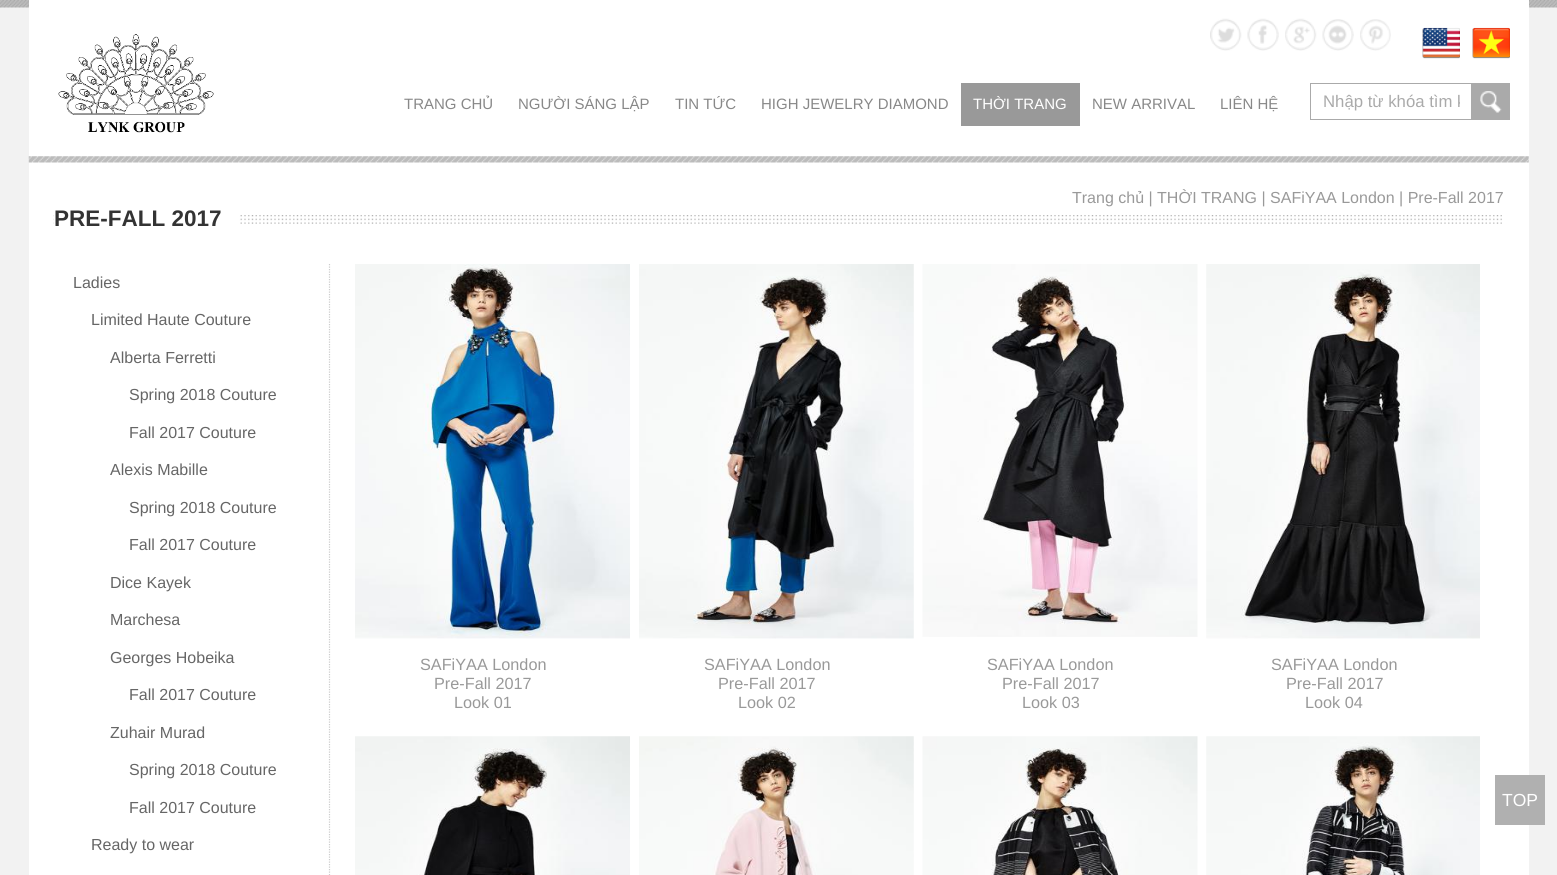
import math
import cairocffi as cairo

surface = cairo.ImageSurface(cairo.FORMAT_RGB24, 1557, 875)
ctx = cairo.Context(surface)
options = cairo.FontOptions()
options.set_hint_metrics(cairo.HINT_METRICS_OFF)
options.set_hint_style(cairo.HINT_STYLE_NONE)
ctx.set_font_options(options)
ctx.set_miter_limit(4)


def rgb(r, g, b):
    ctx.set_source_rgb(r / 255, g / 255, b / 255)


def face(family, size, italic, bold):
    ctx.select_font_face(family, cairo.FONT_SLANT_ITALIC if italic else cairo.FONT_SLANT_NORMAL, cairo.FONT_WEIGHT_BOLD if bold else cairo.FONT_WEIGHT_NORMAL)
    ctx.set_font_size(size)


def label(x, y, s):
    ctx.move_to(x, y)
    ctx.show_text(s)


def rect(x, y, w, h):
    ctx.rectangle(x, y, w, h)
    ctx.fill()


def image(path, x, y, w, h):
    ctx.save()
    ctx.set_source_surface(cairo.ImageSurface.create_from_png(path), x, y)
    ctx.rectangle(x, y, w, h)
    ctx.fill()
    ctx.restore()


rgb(242, 242, 242)
ctx.paint()
image('image0.png', 0, 0, 1557, 8)
rgb(255, 255, 255)
rect(29, 0, 1500, 875)
image('image1.png', 28, 156, 1501, 7)
image('image2.png', 58, 34, 156, 99)
image('image3.png', 1210, 18, 32, 33)
image('image4.png', 1247, 18, 32, 33)
image('image5.png', 1285, 18, 32, 33)
image('image6.png', 1322, 19, 32, 32)
image('image7.png', 1360, 19, 31, 32)
image('image8.png', 1422, 27, 38, 32)
image('image9.png', 1472, 27, 38, 32)
face('Liberation Sans', 15, 0, 0)
rgb(136, 136, 136)
label(404, 109, 'TRANG CHỦ')
label(518, 109, 'NGƯỜI SÁNG LẬP')
label(675, 109, 'TIN TỨC')
label(761, 109, 'HIGH JEWELRY DIAMOND')
rgb(153, 153, 153)
rect(961, 83, 119, 43)
rgb(255, 255, 255)
label(973, 109, 'THỜI TRANG')
rgb(136, 136, 136)
label(1092, 109, 'NEW ARRIVAL')
label(1220, 109, 'LIÊN HỆ')
rgb(170, 170, 170)
rect(1310, 83, 161, 1)
rect(1310, 119, 161, 1)
rect(1310, 83, 1, 37)
ctx.save()
ctx.rectangle(1323, 93, 137, 18)
ctx.clip()
face('Liberation Sans', 16.75, 0, 0)
label(1323, 107, 'Nhập từ khóa tìm k')
ctx.restore()
rect(1471, 83, 39, 37)
image('image10.png', 1480, 91, 22, 22)
image('image11.png', 53, 215, 1449, 9)
face('Liberation Sans', 16, 0, 0)
rgb(153, 153, 153)
label(1072, 203, 'Trang chủ | THỜI TRANG | SAFiYAA London | Pre-Fall 2017')
rgb(255, 255, 255)
rect(54, 215, 185, 9)
face('Liberation Sans', 22.5, 0, 1)
rgb(51, 51, 51)
label(54, 226, 'PRE-FALL 2017')
face('Liberation Sans', 16, 0, 0)
rgb(102, 102, 102)
label(73, 288, 'Ladies')
label(91, 325, 'Limited Haute Couture')
label(110, 363, 'Alberta Ferretti')
label(129, 400, 'Spring 2018 Couture')
label(129, 438, 'Fall 2017 Couture')
label(110, 475, 'Alexis Mabille')
label(129, 513, 'Spring 2018 Couture')
label(129, 550, 'Fall 2017 Couture')
label(110, 588, 'Dice Kayek')
label(110, 625, 'Marchesa')
label(110, 663, 'Georges Hobeika')
label(129, 700, 'Fall 2017 Couture')
label(110, 738, 'Zuhair Murad')
label(129, 775, 'Spring 2018 Couture')
label(129, 813, 'Fall 2017 Couture')
label(91, 850, 'Ready to wear')
ctx.new_path()
ctx.move_to(329.5, 264)
ctx.line_to(329.5, 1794)
rgb(204, 204, 204)
ctx.set_line_width(1.2)
ctx.set_dash([1.25, 1.25])
ctx.stroke()
image('image12.png', 355, 264, 275, 375)
face('Liberation Sans', 16.25, 0, 0)
rgb(153, 153, 153)
label(420, 670, 'SAFiYAA London')
label(434, 689, 'Pre-Fall 2017')
label(454, 708, 'Look 01')
image('image13.png', 639, 264, 275, 375)
label(704, 670, 'SAFiYAA London')
label(718, 689, 'Pre-Fall 2017')
label(738, 708, 'Look 02')
image('image14.png', 922, 264, 276, 373)
label(987, 670, 'SAFiYAA London')
label(1002, 689, 'Pre-Fall 2017')
label(1022, 708, 'Look 03')
image('image15.png', 1206, 264, 274, 375)
label(1271, 670, 'SAFiYAA London')
label(1286, 689, 'Pre-Fall 2017')
label(1305, 708, 'Look 04')
image('image16.png', 355, 736, 275, 139)
image('image17.png', 639, 736, 275, 139)
image('image18.png', 922, 736, 276, 139)
image('image19.png', 1206, 736, 274, 139)
rgb(176, 176, 176)
rect(1495, 775, 50, 50)
face('Liberation Sans', 17.5, 0, 0)
rgb(255, 255, 255)
label(1502, 806, 'TOP')
surface.write_to_png('render.png')
